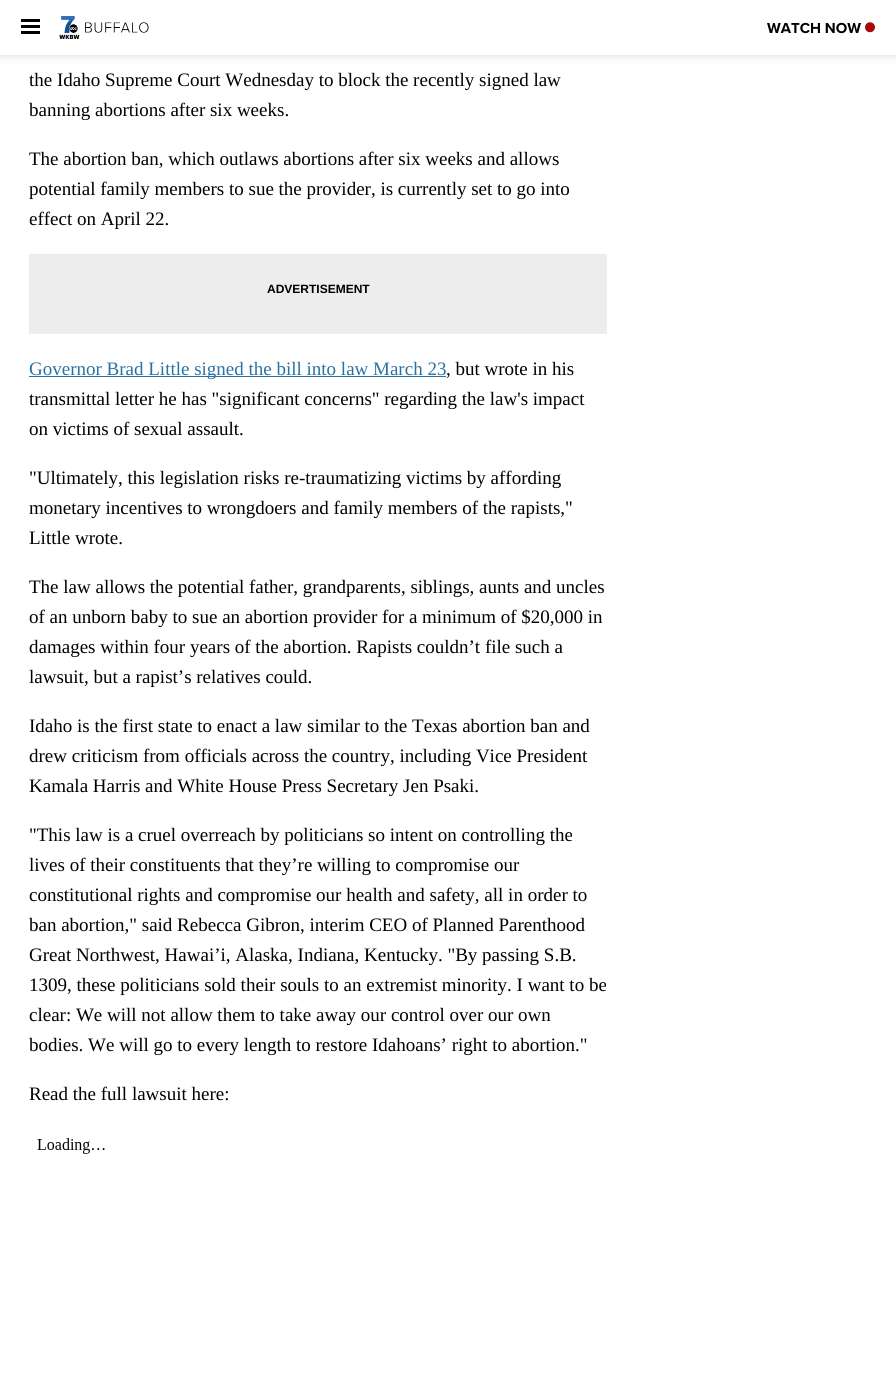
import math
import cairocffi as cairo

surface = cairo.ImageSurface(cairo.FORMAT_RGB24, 896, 1375)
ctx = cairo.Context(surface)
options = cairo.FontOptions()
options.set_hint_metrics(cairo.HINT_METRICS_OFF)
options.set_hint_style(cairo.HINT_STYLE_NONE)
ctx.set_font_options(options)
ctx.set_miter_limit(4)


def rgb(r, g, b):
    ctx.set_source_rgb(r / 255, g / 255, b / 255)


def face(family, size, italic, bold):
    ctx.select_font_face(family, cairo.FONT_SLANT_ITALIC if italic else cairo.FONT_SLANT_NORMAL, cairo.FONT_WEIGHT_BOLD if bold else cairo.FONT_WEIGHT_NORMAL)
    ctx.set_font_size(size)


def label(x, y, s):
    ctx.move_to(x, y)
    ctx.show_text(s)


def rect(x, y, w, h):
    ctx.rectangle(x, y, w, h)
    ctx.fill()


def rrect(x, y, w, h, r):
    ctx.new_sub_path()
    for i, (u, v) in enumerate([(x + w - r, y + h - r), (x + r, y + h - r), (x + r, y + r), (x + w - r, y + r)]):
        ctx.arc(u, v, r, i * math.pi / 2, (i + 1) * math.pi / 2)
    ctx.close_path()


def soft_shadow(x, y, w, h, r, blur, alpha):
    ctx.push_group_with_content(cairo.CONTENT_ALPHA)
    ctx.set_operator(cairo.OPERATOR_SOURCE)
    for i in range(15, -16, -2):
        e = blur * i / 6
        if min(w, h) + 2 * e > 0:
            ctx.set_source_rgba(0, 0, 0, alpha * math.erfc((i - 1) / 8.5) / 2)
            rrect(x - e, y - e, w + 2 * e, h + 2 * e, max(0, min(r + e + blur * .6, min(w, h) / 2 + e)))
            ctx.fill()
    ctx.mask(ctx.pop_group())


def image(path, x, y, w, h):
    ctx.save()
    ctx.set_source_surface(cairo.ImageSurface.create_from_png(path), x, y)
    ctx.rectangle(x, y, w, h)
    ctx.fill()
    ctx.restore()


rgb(255, 255, 255)
ctx.paint()
ctx.save()
ctx.rectangle(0, 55, 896, 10)
ctx.clip()
rgb(204, 204, 204)
soft_shadow(0, 0, 896, 55, 0, 5, 0.8)
ctx.restore()
rgb(0, 0, 0)
rect(21, 19, 19, 3)
rect(21, 25, 19, 3)
rect(21, 31, 19, 3)
image('image0.png', 59, 16, 90, 23)
face('Proxima Nova', 15, 0, 1)
label(767, 33, 'WATCH NOW')
image('image1.png', 865, 22, 10, 11)
face('Liberation Serif', 19, 0, 0)
label(29, 86, 'the Idaho Supreme Court Wednesday to block the recently signed law')
label(29, 116, 'banning abortions after six weeks.')
label(29, 165, 'The abortion ban, which outlaws abortions after six weeks and allows')
label(29, 195, 'potential family members to sue the provider, is currently set to go into')
label(29, 225, 'effect on April 22.')
rgb(237, 237, 237)
rect(29, 254, 578, 80)
face('Liberation Sans', 12, 0, 1)
rgb(0, 0, 0)
label(267, 293, 'ADVERTISEMENT')
rgb(41, 114, 163)
rect(29, 376, 417, 1)
face('Liberation Serif', 19, 0, 0)
label(29, 375, 'Governor Brad Little signed the bill into law March 23')
rgb(0, 0, 0)
label(446, 375, ', but wrote in his')
label(29, 405, 'transmittal letter he has "significant concerns" regarding the law\'s impact')
label(29, 435, 'on victims of sexual assault.')
label(29, 484, '"Ultimately, this legislation risks re-traumatizing victims by affording')
label(29, 514, 'monetary incentives to wrongdoers and family members of the rapists,"')
label(29, 544, 'Little wrote.')
label(29, 593, 'The law allows the potential father, grandparents, siblings, aunts and uncles')
label(29, 623, 'of an unborn baby to sue an abortion provider for a minimum of $20,000 in')
label(29, 653, 'damages within four years of the abortion. Rapists couldn’t file such a')
label(29, 683, 'lawsuit, but a rapist’s relatives could.')
label(29, 732, 'Idaho is the first state to enact a law similar to the Texas abortion ban and')
label(29, 762, 'drew criticism from officials across the country, including Vice President')
label(29, 792, 'Kamala Harris and White House Press Secretary Jen Psaki.')
label(29, 841, '"This law is a cruel overreach by politicians so intent on controlling the')
label(29, 871, 'lives of their constituents that they’re willing to compromise our')
label(29, 901, 'constitutional rights and compromise our health and safety, all in order to')
label(29, 931, 'ban abortion," said Rebecca Gibron, interim CEO of Planned Parenthood')
label(29, 961, 'Great Northwest, Hawai’i, Alaska, Indiana, Kentucky. "By passing S.B.')
label(29, 991, '1309, these politicians sold their souls to an extremist minority. I want to be')
label(29, 1021, 'clear: We will not allow them to take away our control over our own')
label(29, 1051, 'bodies. We will go to every length to restore Idahoans’ right to abortion."')
label(29, 1100, 'Read the full lawsuit here:')
image('image2.png', 37, 1138, 68, 16)
surface.write_to_png('render.png')
